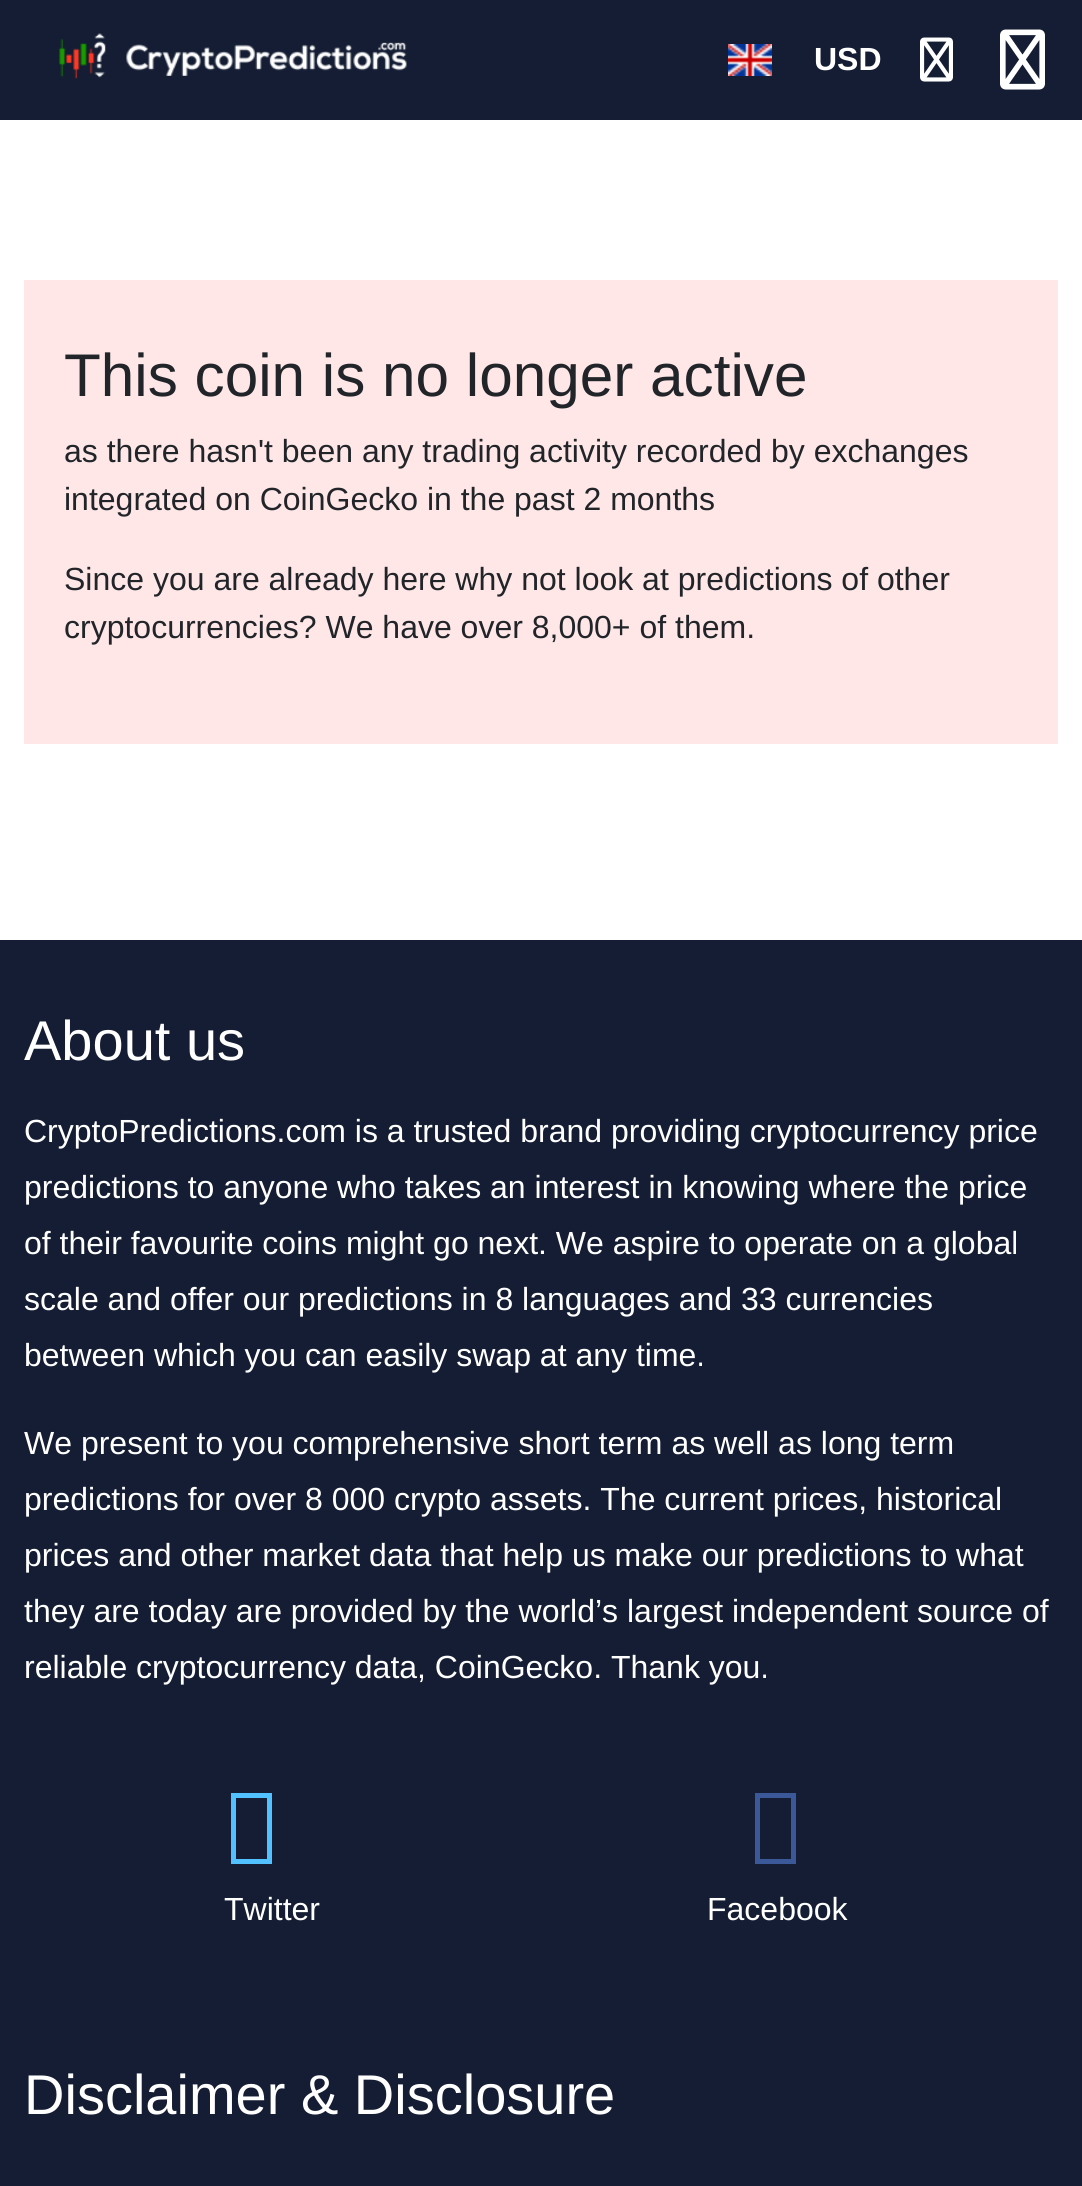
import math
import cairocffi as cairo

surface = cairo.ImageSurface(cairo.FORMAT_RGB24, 1082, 2186)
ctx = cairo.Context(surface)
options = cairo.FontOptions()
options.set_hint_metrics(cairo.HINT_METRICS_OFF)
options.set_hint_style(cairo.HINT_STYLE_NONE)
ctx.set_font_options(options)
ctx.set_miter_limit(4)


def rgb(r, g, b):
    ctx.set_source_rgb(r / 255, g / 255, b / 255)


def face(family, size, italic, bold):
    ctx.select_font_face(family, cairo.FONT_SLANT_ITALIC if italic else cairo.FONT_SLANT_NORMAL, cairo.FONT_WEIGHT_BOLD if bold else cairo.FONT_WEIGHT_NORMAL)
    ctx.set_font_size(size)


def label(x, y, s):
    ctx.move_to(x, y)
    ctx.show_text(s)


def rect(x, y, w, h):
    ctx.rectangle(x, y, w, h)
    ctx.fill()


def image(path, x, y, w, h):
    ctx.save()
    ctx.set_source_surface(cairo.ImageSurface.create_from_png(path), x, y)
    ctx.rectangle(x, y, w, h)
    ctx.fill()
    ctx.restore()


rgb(255, 255, 255)
ctx.paint()
rgb(20, 29, 51)
rect(0, 0, 1082, 120)
image('image0.png', 59, 33, 348, 46)
image('image1.png', 728, 44, 44, 32)
face('Liberation Sans', 32, 0, 1)
rgb(255, 255, 255)
label(814, 70, 'USD')
image('image2.png', 920, 37, 33, 45)
image('image3.png', 1000, 29, 45, 61)
rgb(255, 231, 231)
rect(24, 280, 1034, 464)
face('Liberation Sans', 60.25, 0, 0)
rgb(33, 37, 41)
label(64, 396, 'This coin is no longer active')
face('Liberation Sans', 32, 0, 0)
label(64, 462, 'as there hasn\'t been any trading activity recorded by exchanges')
label(64, 510, 'integrated on CoinGecko in the past 2 months')
label(64, 590, 'Since you are already here why not look at predictions of other')
label(64, 638, 'cryptocurrencies? We have over 8,000+ of them.')
rgb(20, 29, 51)
rect(0, 940, 1082, 1246)
face('Liberation Sans', 56, 0, 0)
rgb(255, 255, 255)
label(24, 1060, 'About us')
face('Liberation Sans', 32, 0, 0)
label(24, 1142, 'CryptoPredictions.com is a trusted brand providing cryptocurrency price')
label(24, 1198, 'predictions to anyone who takes an interest in knowing where the price')
label(24, 1254, 'of their favourite coins might go next. We aspire to operate on a global')
label(24, 1310, 'scale and offer our predictions in 8 languages and 33 currencies')
label(24, 1366, 'between which you can easily swap at any time.')
label(24, 1454, 'We present to you comprehensive short term as well as long term')
label(24, 1510, 'predictions for over 8 000 crypto assets. The current prices, historical')
label(24, 1566, 'prices and other market data that help us make our predictions to what')
label(24, 1622, 'they are today are provided by the world’s largest independent source of')
label(24, 1678, 'reliable cryptocurrency data, CoinGecko. Thank you.')
rgb(82, 193, 255)
ctx.new_path()
ctx.move_to(231, 1864)
ctx.line_to(231, 1793)
ctx.line_to(272, 1793)
ctx.line_to(272, 1864)
ctx.close_path()
ctx.move_to(236, 1859)
ctx.line_to(267, 1859)
ctx.line_to(267, 1798)
ctx.line_to(236, 1798)
ctx.close_path()
ctx.fill()
rgb(255, 255, 255)
label(224, 1920, 'Twitter')
rgb(59, 89, 152)
ctx.new_path()
ctx.move_to(755, 1864)
ctx.line_to(755, 1793)
ctx.line_to(796, 1793)
ctx.line_to(796, 1864)
ctx.close_path()
ctx.move_to(760, 1859)
ctx.line_to(791, 1859)
ctx.line_to(791, 1798)
ctx.line_to(760, 1798)
ctx.close_path()
ctx.fill()
rgb(255, 255, 255)
label(707, 1920, 'Facebook')
face('Liberation Sans', 56, 0, 0)
label(24, 2114, 'Disclaimer & Disclosure')
surface.write_to_png('render.png')
